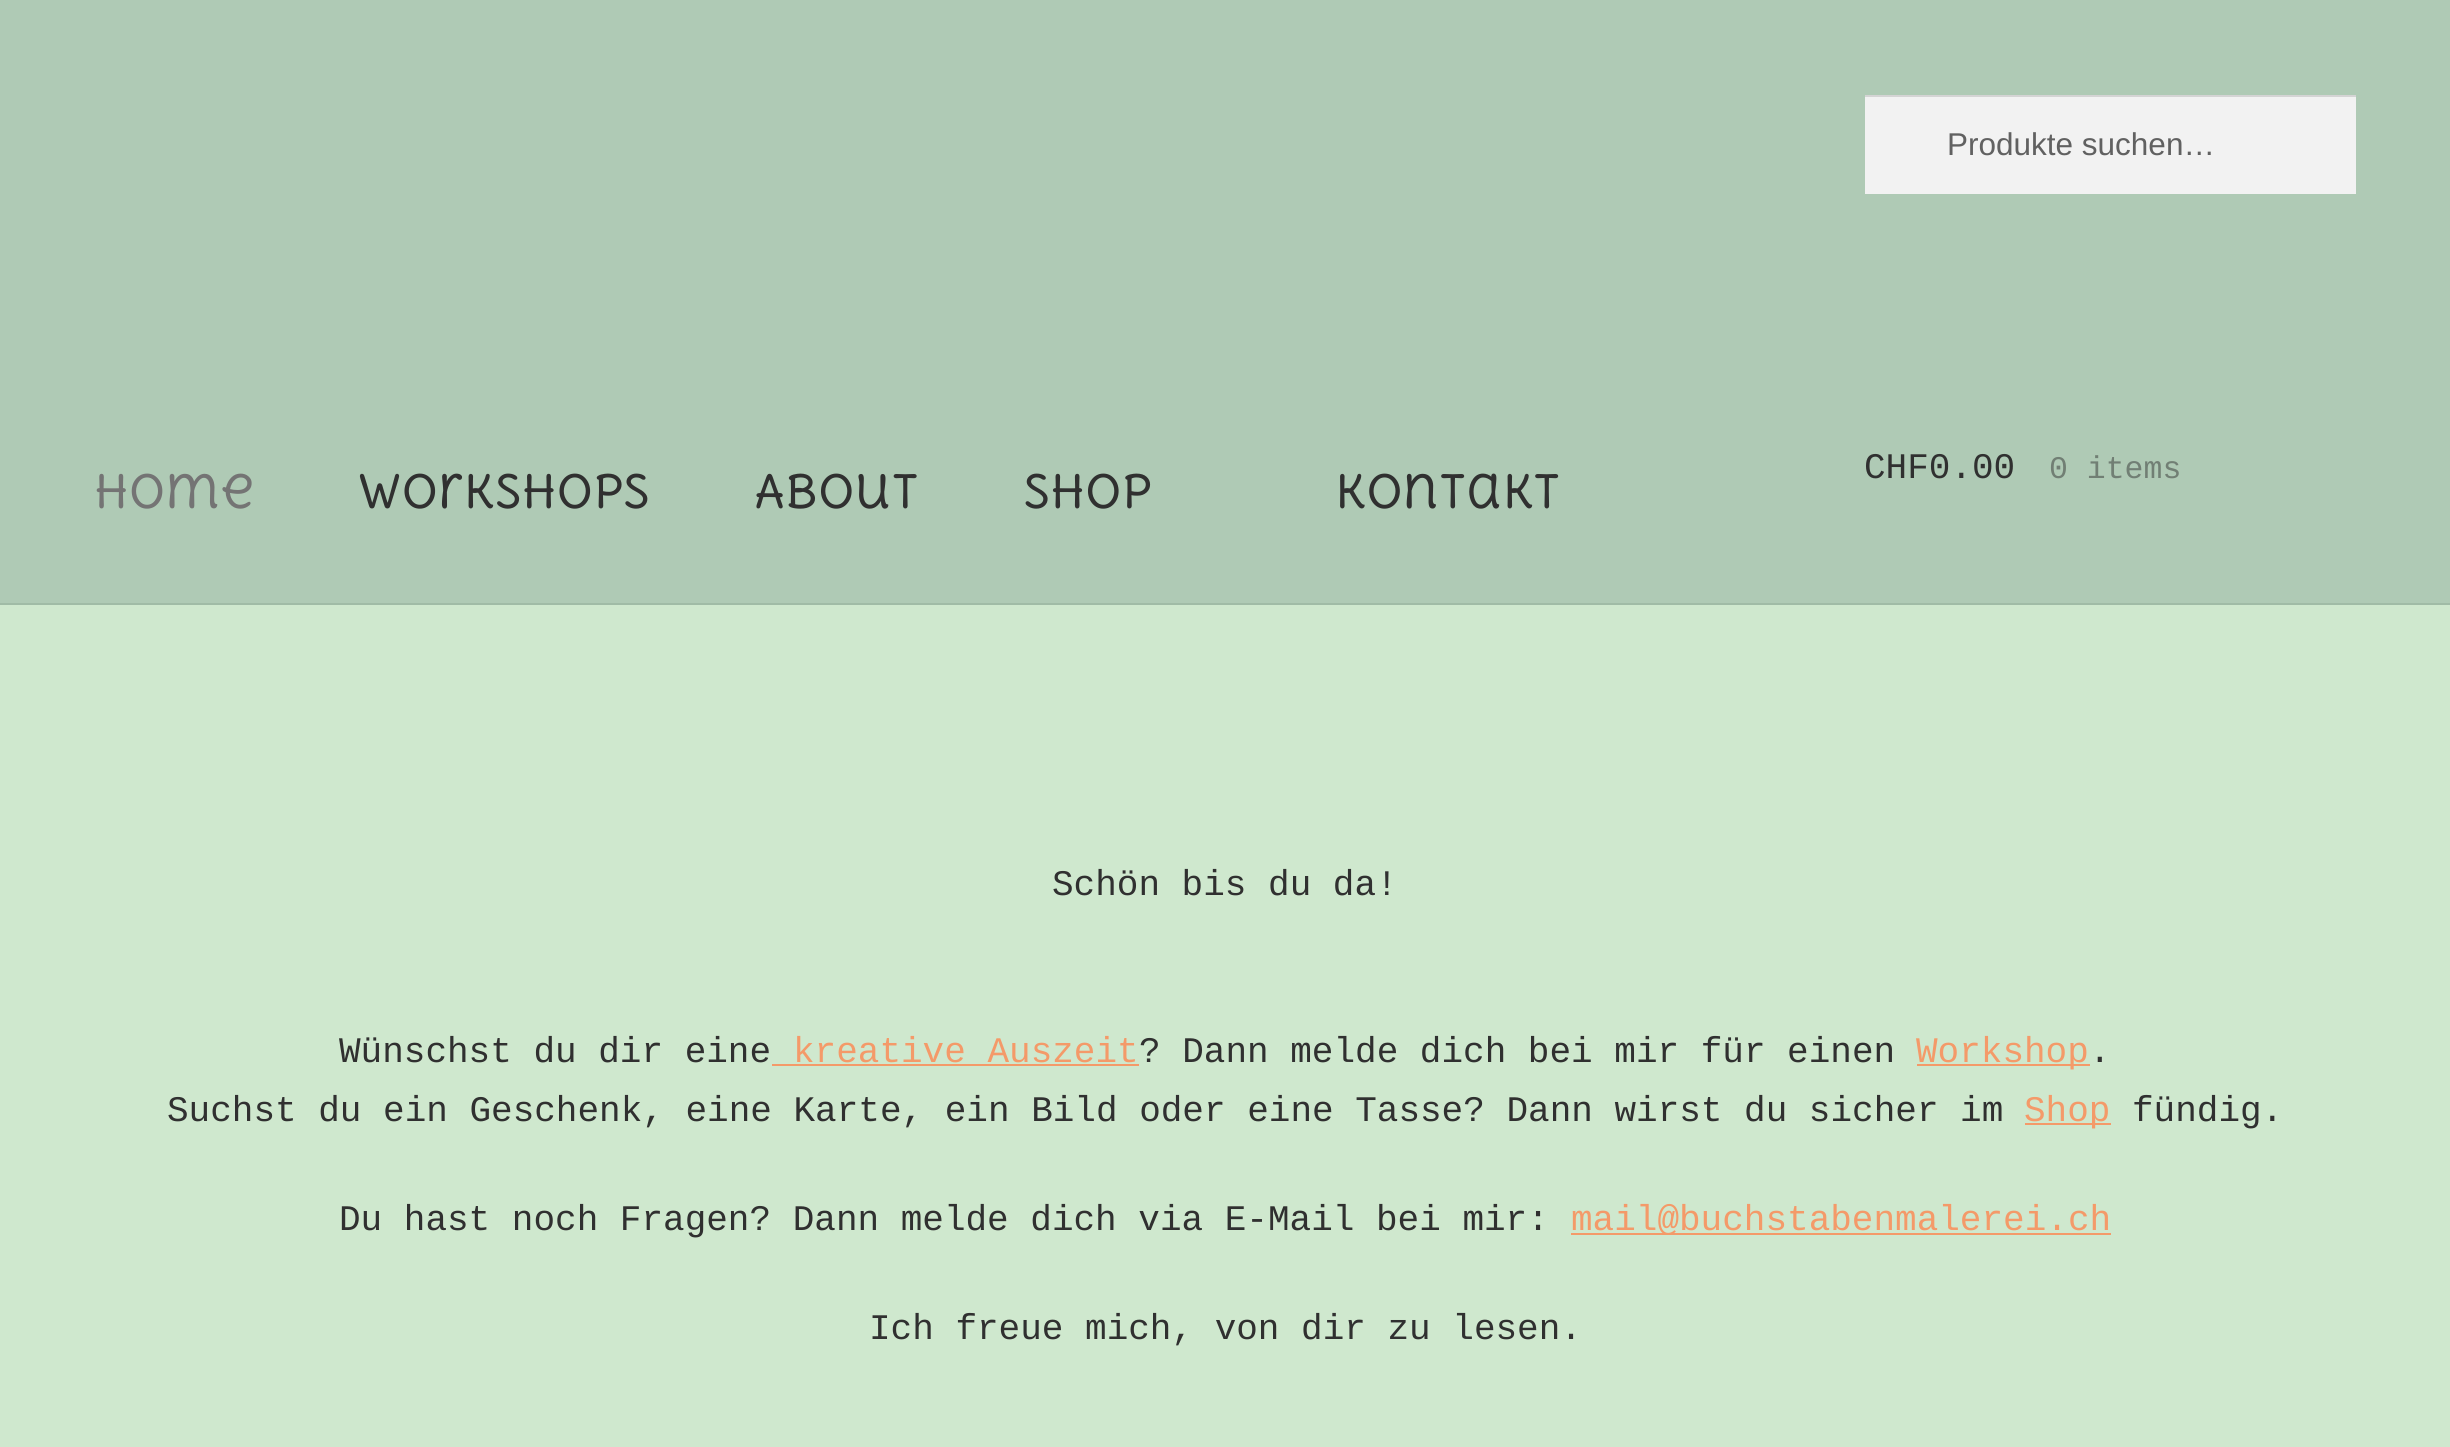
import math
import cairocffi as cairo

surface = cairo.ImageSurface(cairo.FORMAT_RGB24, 2450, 1447)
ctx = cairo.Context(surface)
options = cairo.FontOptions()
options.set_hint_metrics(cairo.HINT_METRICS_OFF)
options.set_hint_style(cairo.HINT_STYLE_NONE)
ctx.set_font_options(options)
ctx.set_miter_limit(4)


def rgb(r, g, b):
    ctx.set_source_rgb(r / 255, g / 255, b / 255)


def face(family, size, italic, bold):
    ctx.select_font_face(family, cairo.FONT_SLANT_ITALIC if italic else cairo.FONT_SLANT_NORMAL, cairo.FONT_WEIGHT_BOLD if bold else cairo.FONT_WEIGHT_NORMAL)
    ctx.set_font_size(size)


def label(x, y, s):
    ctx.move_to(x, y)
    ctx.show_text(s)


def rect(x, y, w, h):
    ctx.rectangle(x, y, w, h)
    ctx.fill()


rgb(207, 232, 206)
ctx.paint()
rgb(175, 202, 181)
rect(0, 0, 2450, 603)
rgb(160, 187, 166)
rect(0, 603, 2450, 2)
rgb(242, 242, 242)
rect(1865, 97, 491, 97)
rgb(212, 212, 212)
rect(1865, 95, 491, 2)
face('Liberation Sans', 31.5, 0, 0)
rgb(97, 97, 97)
label(1947, 155, 'Produkte suchen…')
face('Liberation Mono', 36, 0, 0)
rgb(48, 48, 48)
label(1864, 478, 'CHF0.00')
face('Liberation Mono', 31.5, 0, 0)
rgb(113, 127, 116)
label(2049, 478, '0 items')
face('Delius Unicase', 45, 0, 0)
rgb(116, 116, 116)
label(94, 508, 'Home')
rgb(48, 48, 48)
label(358, 508, 'Workshops')
label(754, 508, 'About')
label(1023, 508, 'Shop')
label(1335, 508, 'Kontakt')
face('Liberation Mono', 36, 0, 0)
label(1052, 895, 'Schön bis du da!')
label(339, 1062, 'Wünschst du dir eine')
rgb(244, 154, 105)
label(793, 1062, 'kreative Auszeit')
rect(772, 1064, 367, 2)
rgb(48, 48, 48)
label(1139, 1062, '? Dann melde dich bei mir für einen')
rgb(244, 154, 105)
rect(1917, 1064, 173, 2)
label(1916, 1062, 'Workshop')
rgb(48, 48, 48)
label(2089, 1062, '.')
label(167, 1121, 'Suchst du ein Geschenk, eine Karte, ein Bild oder eine Tasse? Dann wirst du sicher im')
rgb(244, 154, 105)
rect(2025, 1123, 86, 2)
label(2024, 1121, 'Shop')
rgb(48, 48, 48)
label(2132, 1121, 'fündig.')
label(339, 1230, 'Du hast noch Fragen? Dann melde dich via E-Mail bei mir:')
rgb(244, 154, 105)
rect(1571, 1233, 540, 2)
label(1571, 1230, 'mail@buchstabenmalerei.ch')
rgb(48, 48, 48)
label(869, 1339, 'Ich freue mich, von dir zu lesen.')
surface.write_to_png('render.png')
